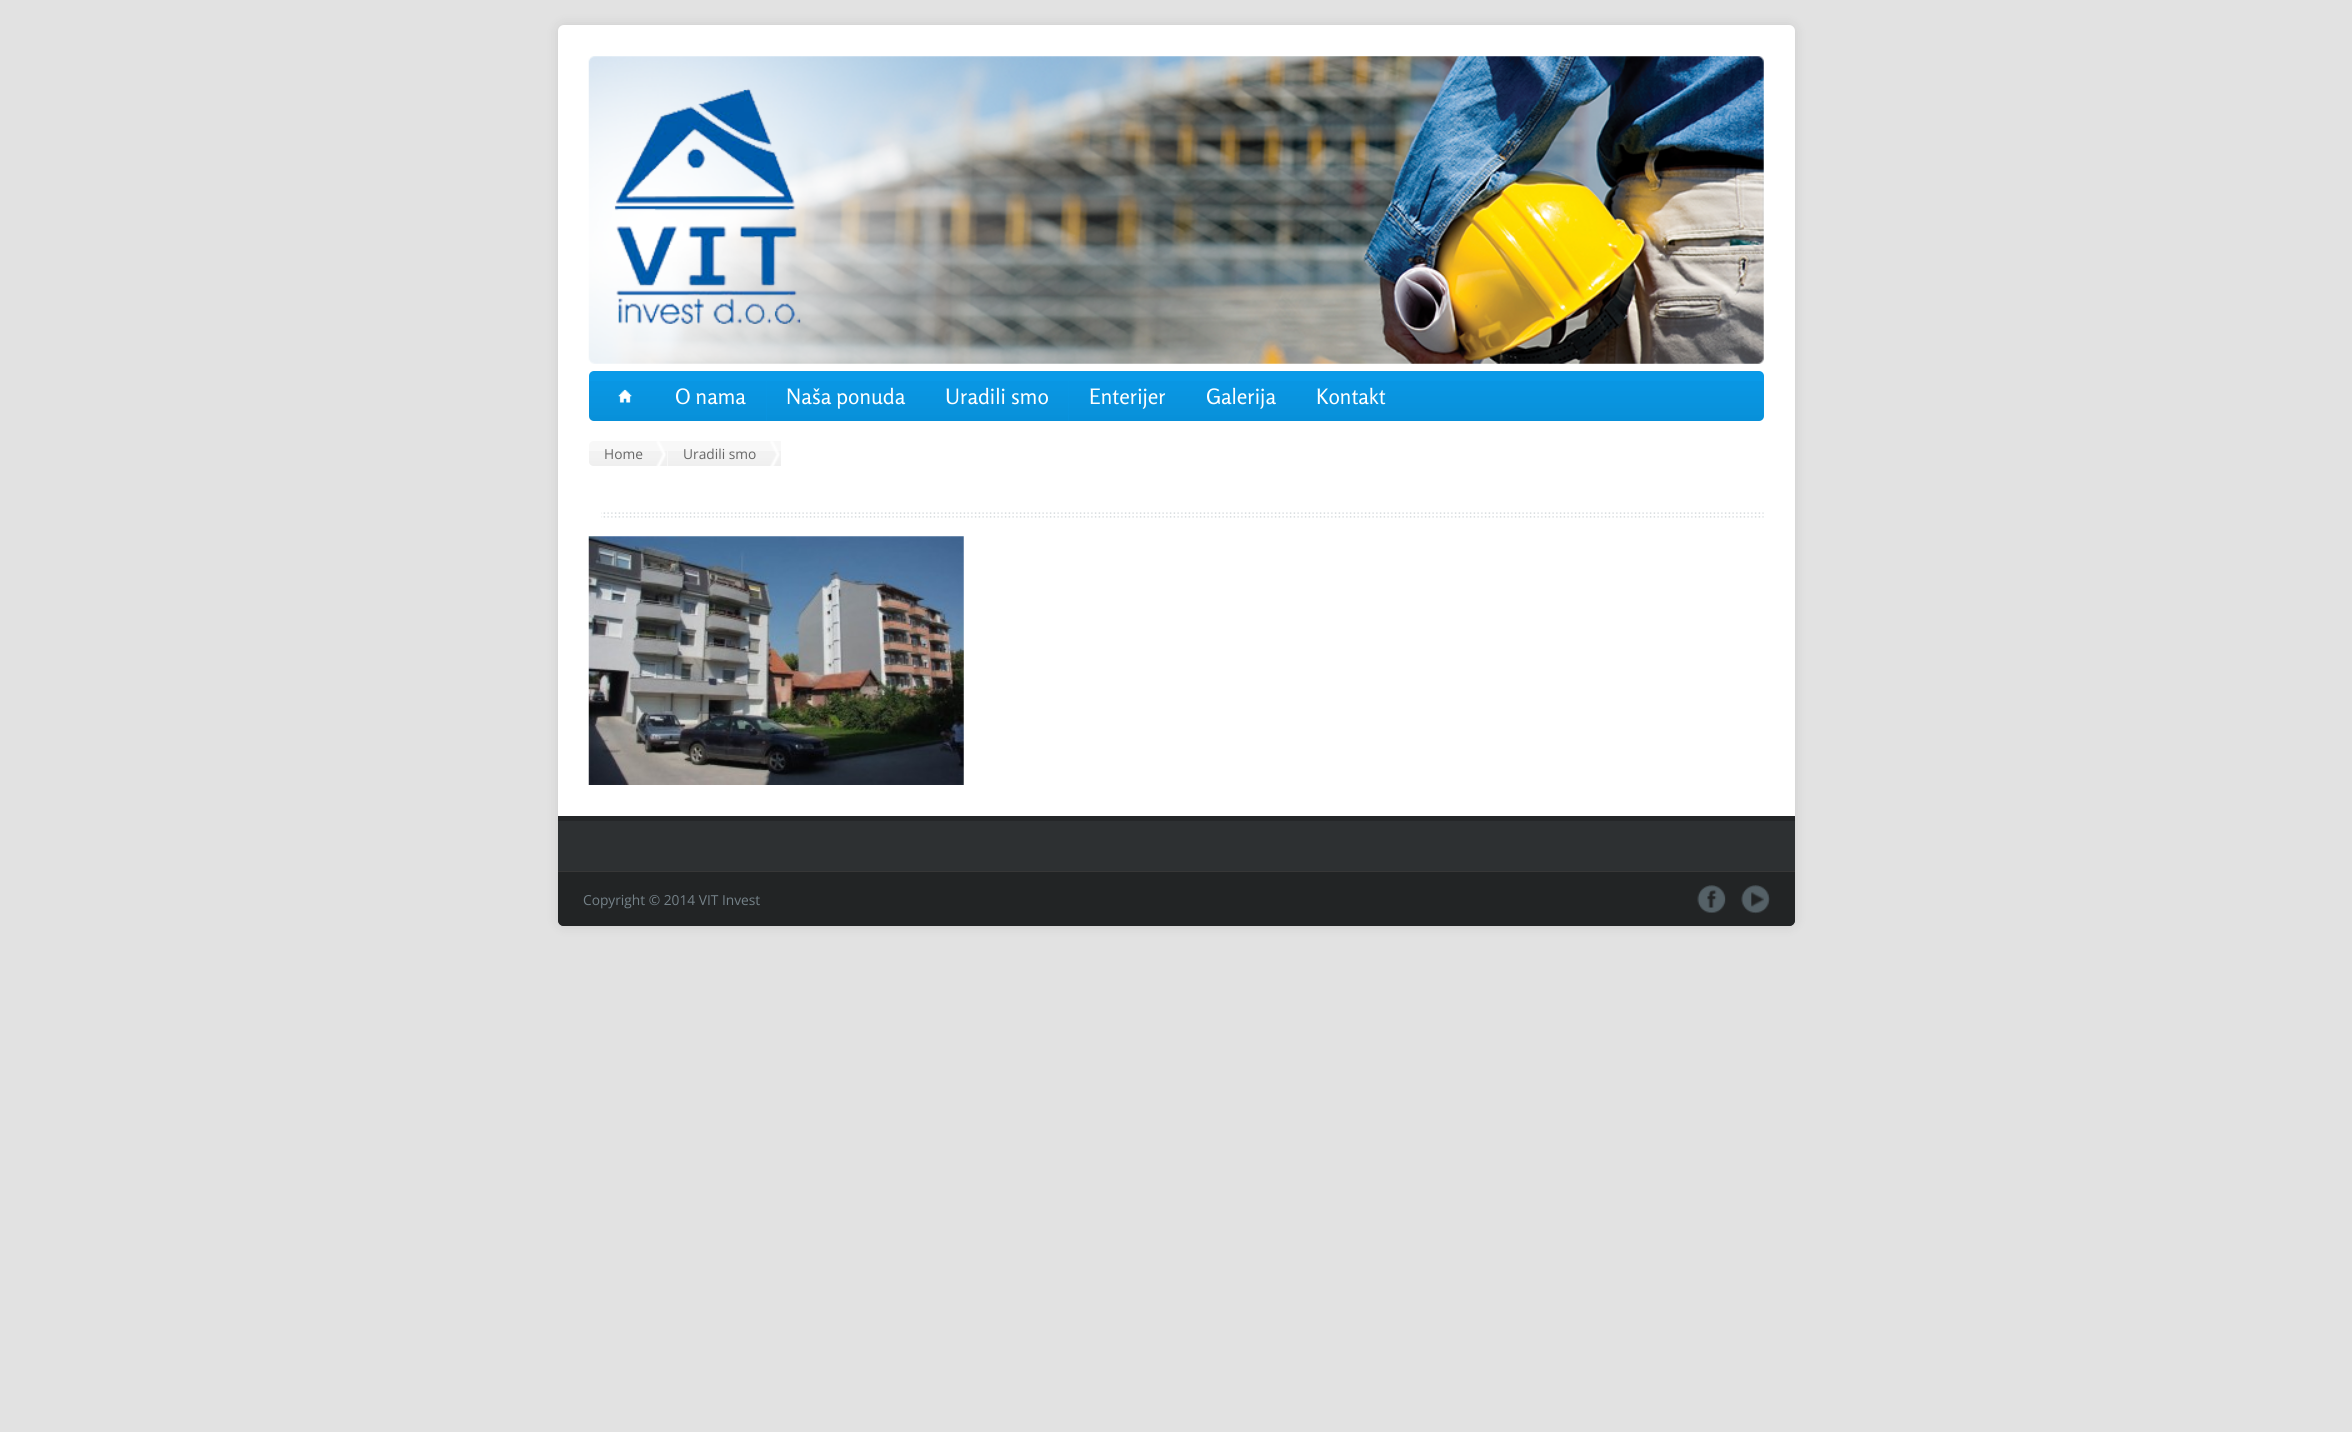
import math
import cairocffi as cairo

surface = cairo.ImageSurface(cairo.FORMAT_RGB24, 2352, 1432)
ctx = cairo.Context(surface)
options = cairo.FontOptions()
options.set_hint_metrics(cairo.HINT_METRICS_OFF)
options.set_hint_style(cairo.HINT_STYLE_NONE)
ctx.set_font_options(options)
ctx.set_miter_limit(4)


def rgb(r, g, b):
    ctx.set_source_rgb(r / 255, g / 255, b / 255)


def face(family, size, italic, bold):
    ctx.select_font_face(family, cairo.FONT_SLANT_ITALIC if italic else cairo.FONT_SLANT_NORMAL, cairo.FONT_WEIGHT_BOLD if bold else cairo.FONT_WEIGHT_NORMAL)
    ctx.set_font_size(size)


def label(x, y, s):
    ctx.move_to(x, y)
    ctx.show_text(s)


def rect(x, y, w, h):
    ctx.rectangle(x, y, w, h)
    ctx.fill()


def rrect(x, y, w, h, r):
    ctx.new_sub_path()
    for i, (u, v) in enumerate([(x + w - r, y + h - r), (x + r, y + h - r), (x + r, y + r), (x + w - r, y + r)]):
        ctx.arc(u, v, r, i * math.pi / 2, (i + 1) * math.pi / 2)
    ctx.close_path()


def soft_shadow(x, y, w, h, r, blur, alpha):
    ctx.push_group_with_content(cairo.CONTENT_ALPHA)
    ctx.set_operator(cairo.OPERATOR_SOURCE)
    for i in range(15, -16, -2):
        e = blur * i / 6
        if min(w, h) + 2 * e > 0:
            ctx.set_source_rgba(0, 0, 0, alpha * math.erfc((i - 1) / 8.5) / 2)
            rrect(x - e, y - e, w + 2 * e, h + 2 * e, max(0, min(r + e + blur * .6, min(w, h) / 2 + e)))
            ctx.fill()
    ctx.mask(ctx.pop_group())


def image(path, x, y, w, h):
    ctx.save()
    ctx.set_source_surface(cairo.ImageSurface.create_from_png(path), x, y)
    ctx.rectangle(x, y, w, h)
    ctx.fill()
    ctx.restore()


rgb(226, 226, 226)
ctx.paint()
rgb(0, 0, 0)
soft_shadow(558, 25, 1237, 901, 6, 6, 0.1)
rgb(255, 255, 255)
rrect(558, 25, 1237, 901, 6)
ctx.fill()
image('image0.png', 588, 56, 1176, 308)
rgb(9, 154, 232)
rrect(589, 371, 1175, 50, 5)
ctx.fill()
image('image1.png', 589, 381, 1175, 40)
rect(595, 381, 810, 40)
image('image2.png', 595, 381, 60, 40)
image('image3.png', 618, 389, 14, 14)
image('image4.png', 655, 381, 111, 40)
face('Rosario', 21.25, 0, 0)
rgb(255, 255, 255)
label(675, 404, 'O nama')
image('image5.png', 766, 381, 159, 40)
label(786, 404, 'Naša ponuda')
image('image6.png', 925, 381, 144, 40)
label(945, 404, 'Uradili smo')
image('image7.png', 1069, 381, 116, 40)
label(1089, 404, 'Enterijer')
image('image8.png', 1185, 381, 110, 40)
label(1206, 404, 'Galerija')
image('image8.png', 1295, 381, 110, 40)
label(1316, 404, 'Kontakt')
rgb(248, 248, 248)
ctx.new_path()
ctx.move_to(594, 441)
ctx.line_to(668, 441)
ctx.line_to(668, 466)
ctx.line_to(594, 466)
ctx.curve_to(591, 466, 589, 464, 589, 461)
ctx.line_to(589, 446)
ctx.curve_to(589, 443, 591, 441, 594, 441)
ctx.close_path()
ctx.fill()
image('image9.png', 589, 451, 78, 15)
image('image10.png', 656, 441, 10, 25)
face('Open Sans', 13.75, 0, 0)
rgb(102, 102, 102)
label(604, 459, 'Home')
rgb(248, 248, 248)
rect(668, 441, 113, 25)
image('image11.png', 668, 451, 113, 15)
image('image12.png', 770, 441, 10, 25)
rgb(102, 102, 102)
label(683, 459, 'Uradili smo')
image('image13.png', 601, 512, 1163, 6)
image('image14.png', 588, 536, 376, 249)
rgb(45, 48, 50)
ctx.new_path()
ctx.move_to(558, 816)
ctx.line_to(1795, 816)
ctx.line_to(1795, 920)
ctx.curve_to(1795, 923.5, 1792.5, 926, 1789, 926)
ctx.line_to(564, 926)
ctx.curve_to(560.5, 926, 558, 923.5, 558, 920)
ctx.close_path()
ctx.fill()
rgb(36, 38, 40)
rect(558, 816, 1237, 5)
rgb(34, 36, 37)
ctx.new_path()
ctx.move_to(558, 871)
ctx.line_to(1795, 871)
ctx.line_to(1795, 920)
ctx.curve_to(1795, 923.5, 1792.5, 926, 1789, 926)
ctx.line_to(564, 926)
ctx.curve_to(560.5, 926, 558, 923.5, 558, 920)
ctx.close_path()
ctx.fill()
rgb(55, 55, 55)
rect(558, 871, 1237, 1)
rgb(116, 129, 136)
label(583, 905, 'Copyright © 2014 VIT Invest')
image('image15.png', 1697, 885, 29, 28)
image('image16.png', 1741, 885, 29, 29)
surface.write_to_png('render.png')
